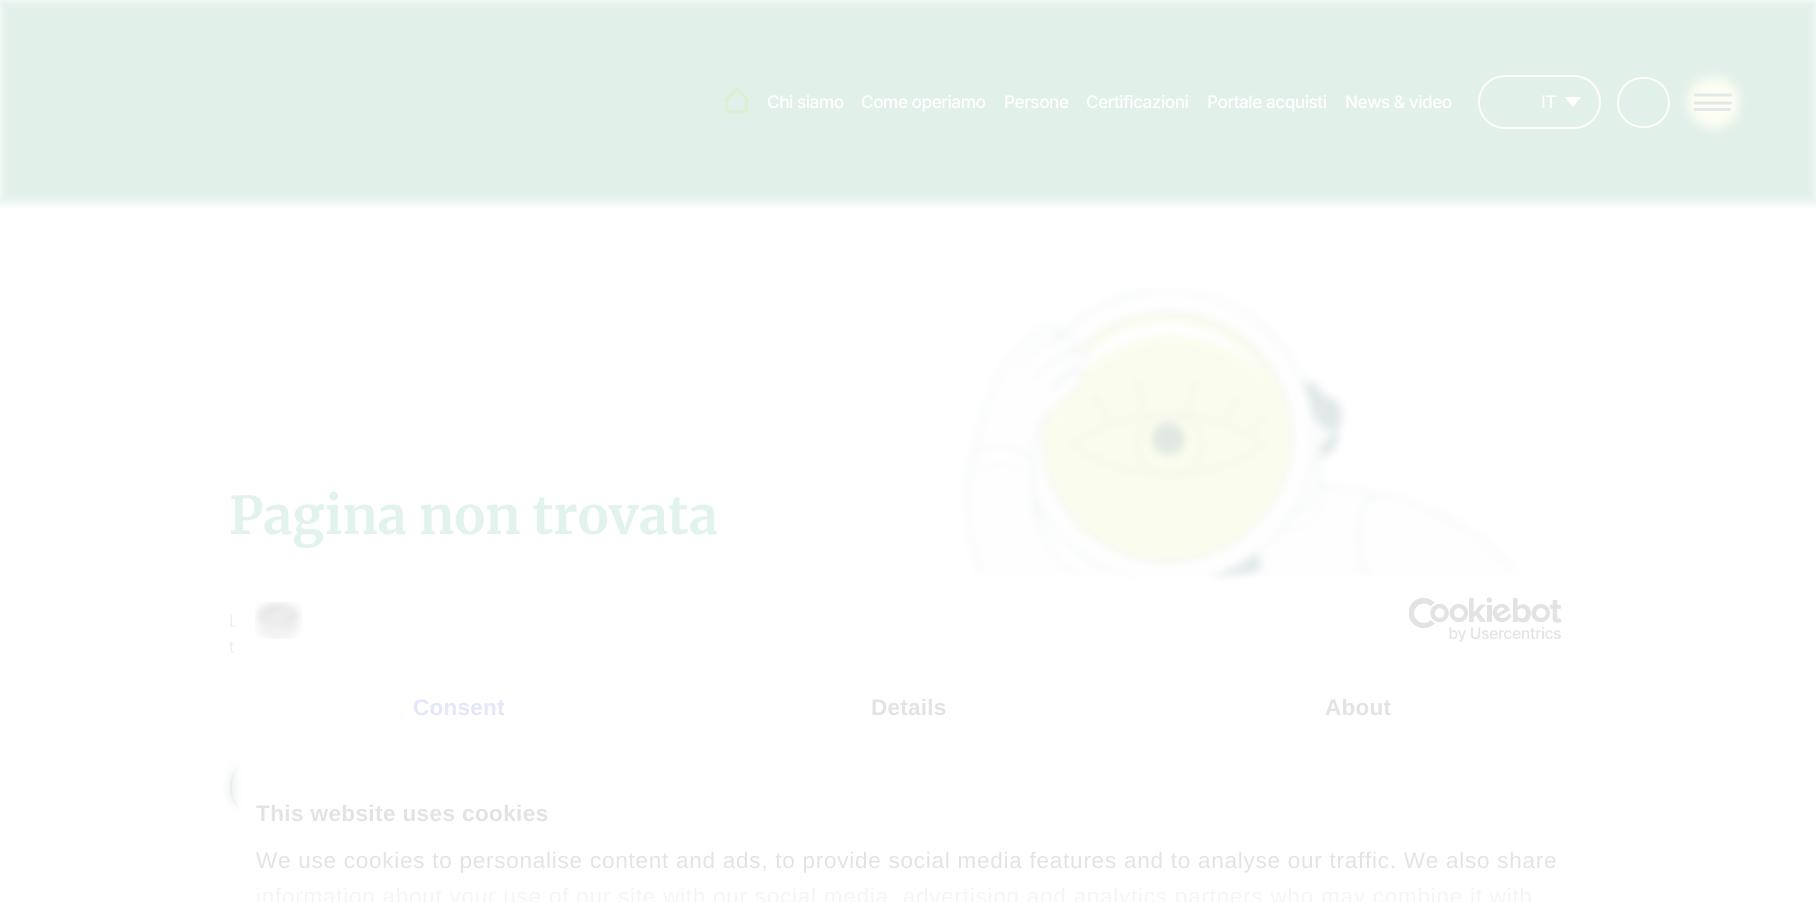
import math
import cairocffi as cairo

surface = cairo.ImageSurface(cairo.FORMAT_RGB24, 1816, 902)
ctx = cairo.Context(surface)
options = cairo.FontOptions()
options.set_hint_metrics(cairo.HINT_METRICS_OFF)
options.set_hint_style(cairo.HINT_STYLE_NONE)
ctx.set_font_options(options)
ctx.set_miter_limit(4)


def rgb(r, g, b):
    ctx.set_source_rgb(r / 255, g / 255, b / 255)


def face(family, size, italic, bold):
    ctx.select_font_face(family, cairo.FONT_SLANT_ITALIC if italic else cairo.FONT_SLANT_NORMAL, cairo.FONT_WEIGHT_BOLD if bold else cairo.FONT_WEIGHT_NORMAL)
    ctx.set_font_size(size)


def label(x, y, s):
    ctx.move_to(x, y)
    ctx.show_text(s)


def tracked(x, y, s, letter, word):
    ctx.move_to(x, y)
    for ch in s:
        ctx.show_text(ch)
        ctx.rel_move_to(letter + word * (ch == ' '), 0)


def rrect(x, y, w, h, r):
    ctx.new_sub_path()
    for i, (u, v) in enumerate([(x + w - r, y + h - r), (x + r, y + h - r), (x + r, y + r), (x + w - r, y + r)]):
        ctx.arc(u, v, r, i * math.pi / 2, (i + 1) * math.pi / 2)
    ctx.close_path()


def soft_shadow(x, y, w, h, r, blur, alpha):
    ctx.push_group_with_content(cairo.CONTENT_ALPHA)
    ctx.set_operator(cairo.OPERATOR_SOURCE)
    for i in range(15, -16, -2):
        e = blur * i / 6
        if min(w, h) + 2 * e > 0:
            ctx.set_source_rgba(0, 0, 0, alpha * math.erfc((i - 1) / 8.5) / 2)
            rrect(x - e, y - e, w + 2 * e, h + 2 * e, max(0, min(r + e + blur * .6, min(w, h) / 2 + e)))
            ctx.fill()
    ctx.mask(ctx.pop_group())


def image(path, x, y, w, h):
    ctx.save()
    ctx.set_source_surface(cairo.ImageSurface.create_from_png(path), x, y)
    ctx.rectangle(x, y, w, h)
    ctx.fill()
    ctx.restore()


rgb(255, 255, 255)
ctx.paint()
rgb(226, 240, 234)
soft_shadow(0, 0, 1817, 203, 0, 4.5, 1)
image('image0.png', 724, 88, 25, 26)
face('Inter Medium', 17.25, 0, 0)
rgb(255, 255, 255)
tracked(767, 108, 'Chi siamo', -0.5, 0)
tracked(861, 108, 'Come operiamo', -0.5, 0)
tracked(1004, 108, 'Persone', -0.5, 0)
tracked(1086, 108, 'Certificazioni', -0.5, 0)
tracked(1207, 108, 'Portale acquisti', -0.5, 0)
tracked(1345, 108, 'News & video', -0.5, 0)
rrect(1479, 76, 121, 52, 26)
rgb(252, 253, 243)
ctx.stroke()
rgb(255, 255, 255)
tracked(1541, 108, 'IT', -0.5, 0)
ctx.set_fill_rule(cairo.FILL_RULE_EVEN_ODD)
ctx.new_path()
ctx.move_to(1573, 107)
ctx.line_to(1581, 97)
ctx.line_to(1564.5, 97)
ctx.close_path()
ctx.fill()
rrect(1618, 78, 51, 49, 24.5)
rgb(252, 253, 243)
ctx.stroke()
rgb(252, 253, 243)
soft_shadow(1688, 77, 51, 51, 25.5, 4.5, 1)
ctx.new_path()
ctx.move_to(1695.5, 95)
ctx.line_to(1730.5, 95)
ctx.move_to(1695.5, 103)
ctx.line_to(1730.5, 103)
ctx.move_to(1695, 109.5)
ctx.line_to(1729.5, 109.5)
rgb(225, 234, 233)
ctx.set_line_width(3)
ctx.set_line_cap(cairo.LINE_CAP_ROUND)
ctx.stroke()
face('Merriweather', 51.9, 0, 1)
rgb(225, 243, 236)
label(229, 534, 'Pagina non trovata')
face('Inter', 17.25, 0, 0)
rgb(232, 233, 234)
label(229, 627, 'L')
label(229, 653, 't')
rgb(225, 232, 229)
soft_shadow(230, 756, 277, 62, 31, 4.5, 1)
rrect(231, 757, 275, 60, 30)
rgb(225, 232, 229)
ctx.set_line_width(2)
ctx.set_line_cap(cairo.LINE_CAP_BUTT)
ctx.stroke()
image('image1.png', 962, 288, 611, 614)
rgb(255, 255, 255)
soft_shadow(234, 575, 1350, 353, 12, 4.5, 1)
image('image2.png', 255, 602, 47, 37)
image('image3.png', 1409, 597, 153, 45)
face('Liberation Sans', 22.5, 0, 1)
rgb(227, 231, 249)
tracked(413, 715, 'Consent', 0.25, 0)
rgb(227, 227, 227)
tracked(871, 715, 'Details', 0.25, 0)
tracked(1325, 715, 'About', 0.25, 0)
tracked(256, 821, 'This website uses cookies', 0.4, 0)
face('Liberation Sans', 22.5, 0, 0)
tracked(256, 868, 'We use cookies to personalise content and ads, to provide social media features and to analyse our traffic. We also share', 0.75, 0)
tracked(256, 904, 'information about your use of our site with our social media, advertising and analytics partners who may combine it with', 0.75, 0)
ctx.save()
ctx.set_fill_rule(cairo.FILL_RULE_WINDING)
rrect(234, 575, 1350, 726, 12)
ctx.clip()
rgb(255, 255, 255)
soft_shadow(236, 884, 1327, 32, 0, 4.5, 0.65)
ctx.restore()
surface.write_to_png('render.png')
